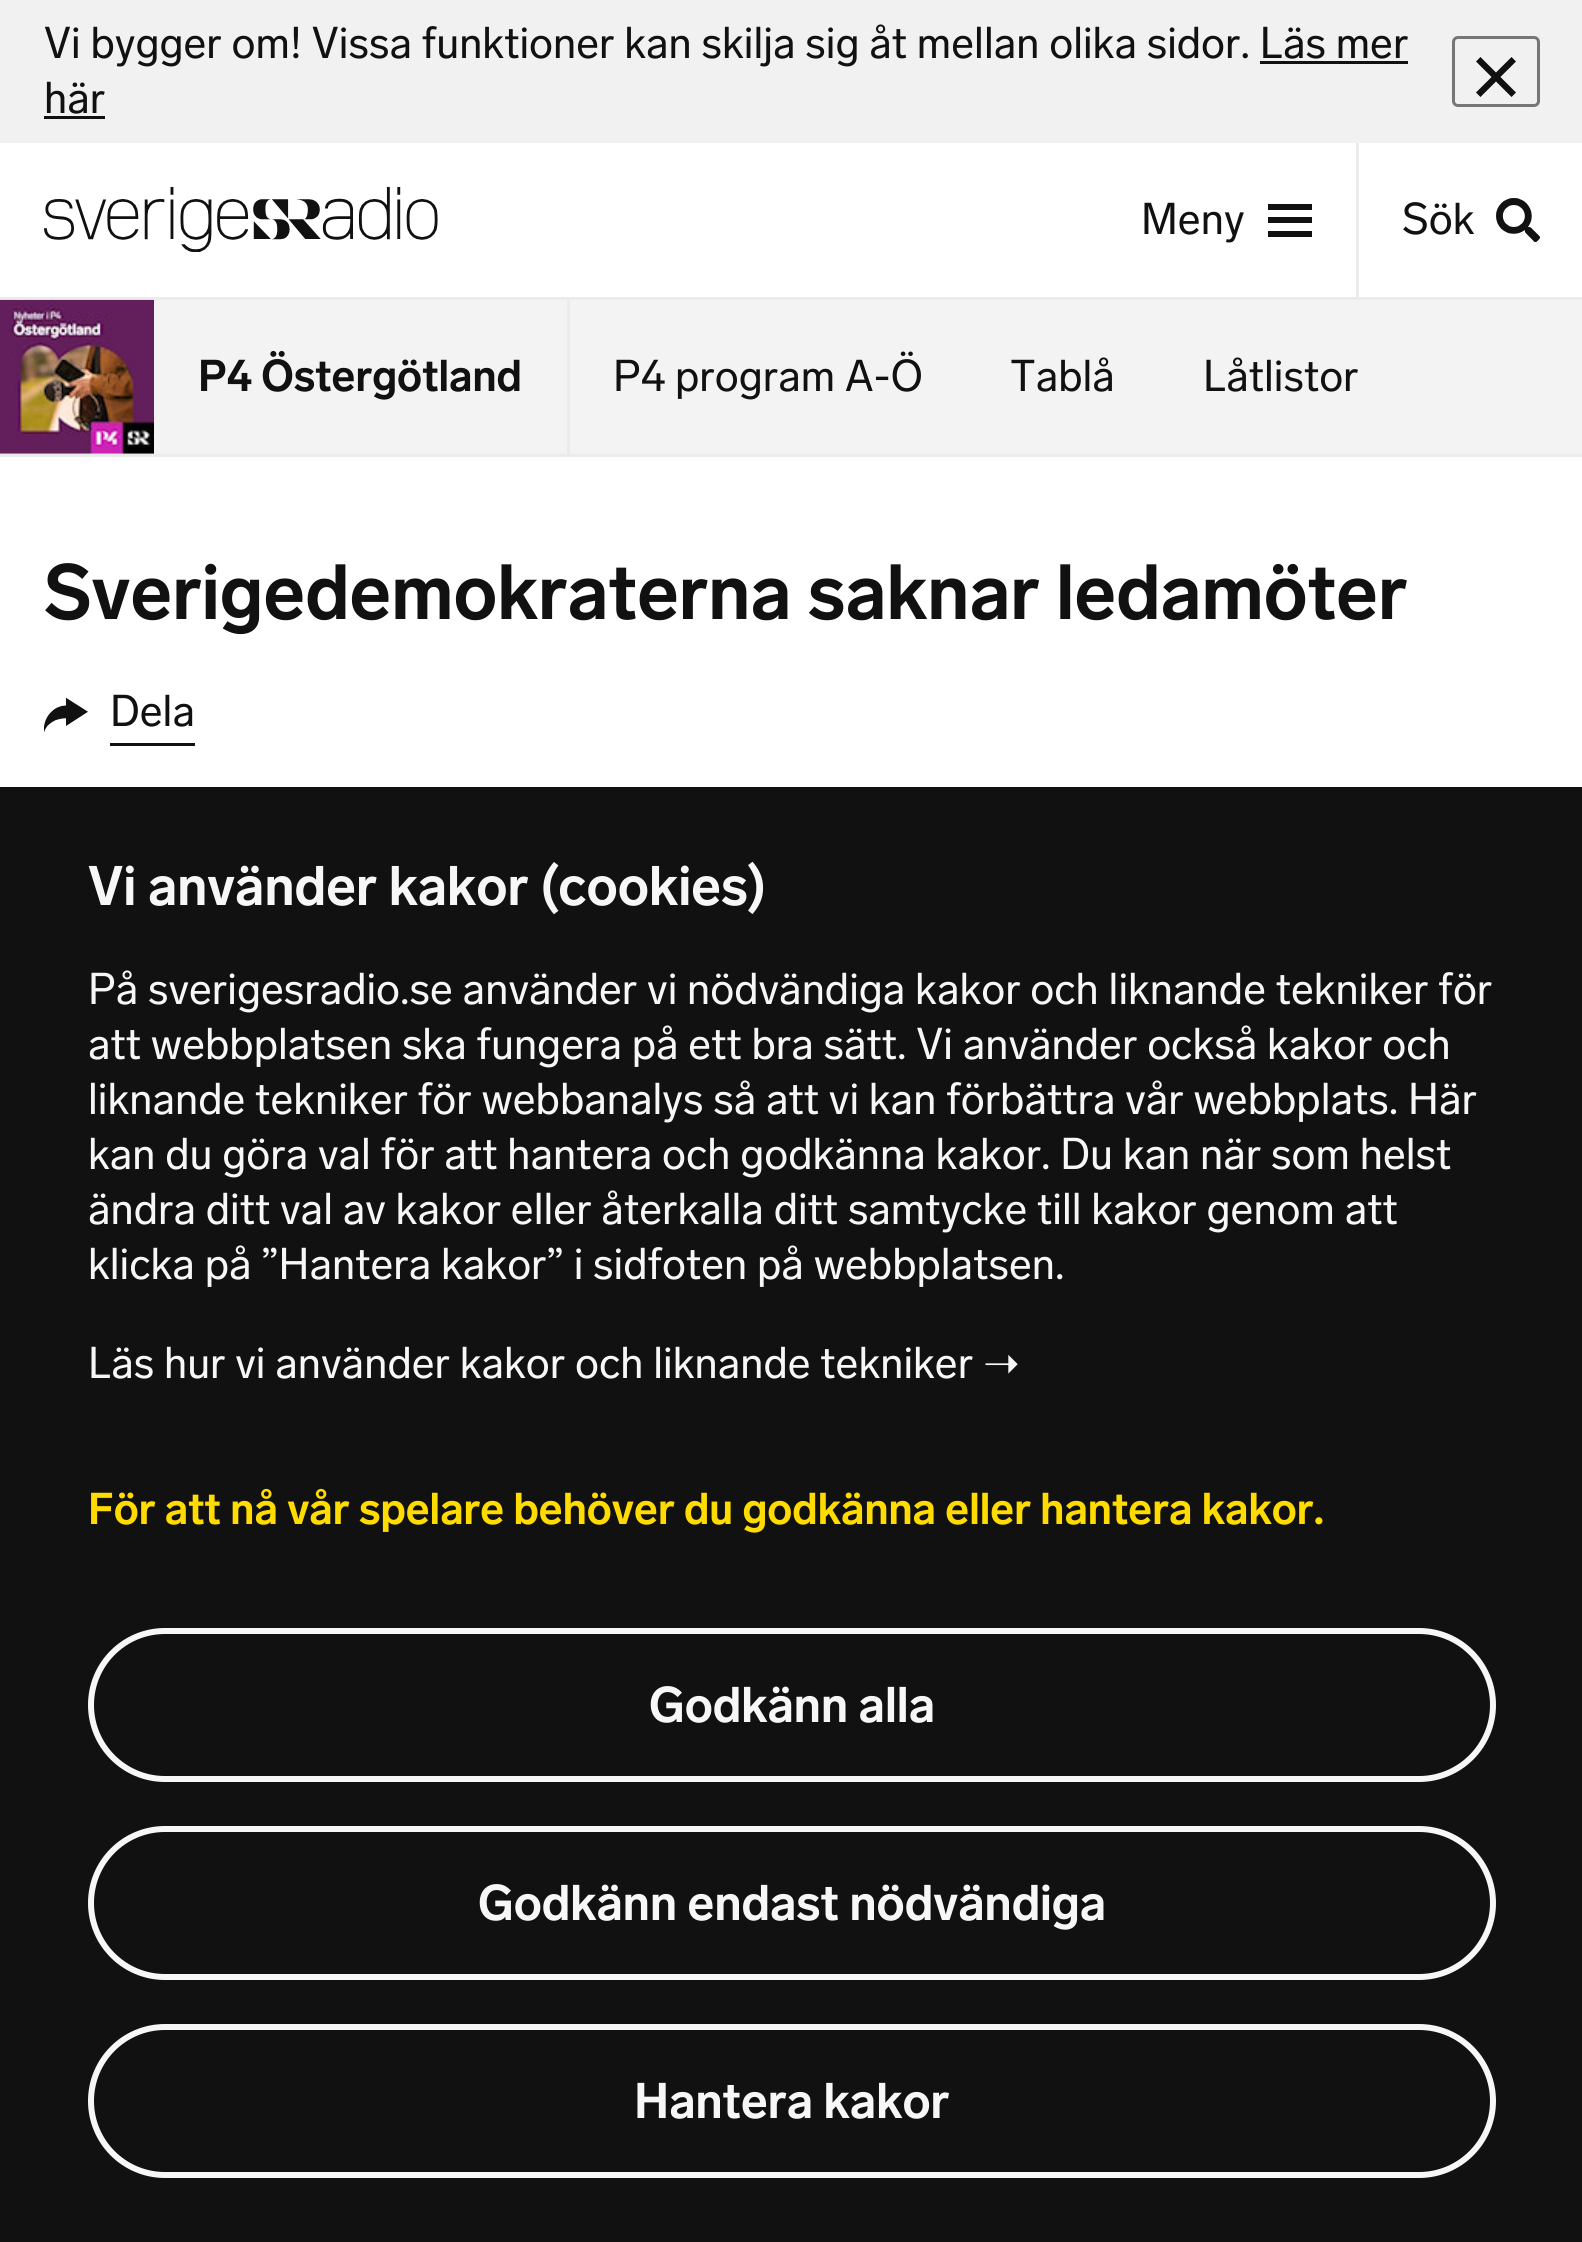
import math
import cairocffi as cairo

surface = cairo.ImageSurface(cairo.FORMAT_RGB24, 1582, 2242)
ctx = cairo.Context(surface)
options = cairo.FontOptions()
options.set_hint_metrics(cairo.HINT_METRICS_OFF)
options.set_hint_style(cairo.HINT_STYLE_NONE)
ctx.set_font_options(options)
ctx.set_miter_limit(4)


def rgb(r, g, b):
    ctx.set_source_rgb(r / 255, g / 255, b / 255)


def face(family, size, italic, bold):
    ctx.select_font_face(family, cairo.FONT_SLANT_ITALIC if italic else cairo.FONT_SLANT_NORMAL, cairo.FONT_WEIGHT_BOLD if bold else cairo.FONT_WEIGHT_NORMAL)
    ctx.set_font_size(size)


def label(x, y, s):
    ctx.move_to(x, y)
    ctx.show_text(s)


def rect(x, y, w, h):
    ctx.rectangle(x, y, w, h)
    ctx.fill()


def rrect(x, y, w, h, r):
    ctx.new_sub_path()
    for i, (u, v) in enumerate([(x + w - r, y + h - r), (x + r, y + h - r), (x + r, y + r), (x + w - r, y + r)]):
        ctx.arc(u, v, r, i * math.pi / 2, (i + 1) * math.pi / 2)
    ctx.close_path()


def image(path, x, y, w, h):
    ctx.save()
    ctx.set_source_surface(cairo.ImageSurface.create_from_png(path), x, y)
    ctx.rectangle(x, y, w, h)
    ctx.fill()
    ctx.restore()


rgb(255, 255, 255)
ctx.paint()
rgb(241, 241, 241)
rect(0, 0, 1582, 143)
face('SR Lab', 44, 0, 0)
rgb(17, 17, 17)
label(44, 58, 'Vi bygger om! Vissa funktioner kan skilja sig åt mellan olika sidor. Läs mer')
label(44, 113, 'här')
rect(1260, 61, 148, 3)
rect(44, 116, 61, 3)
rrect(1453.5, 37.5, 85, 68, 4.5)
rgb(118, 118, 118)
ctx.set_line_width(3)
ctx.stroke()
image('image0.png', 1476, 57, 40, 40)
rgb(235, 235, 235)
rect(0, 297, 1582, 3)
image('image1.png', 44, 187, 394, 65)
rgb(17, 17, 17)
label(1141, 234, 'Meny')
rect(1268, 204, 44, 6)
rect(1268, 217, 44, 6)
rect(1268, 231, 44, 6)
rgb(235, 235, 235)
rect(1356, 143, 3, 154)
rgb(17, 17, 17)
label(1402, 234, 'Sök')
image('image2.png', 1496, 198, 44, 44)
rgb(243, 243, 243)
rect(0, 300, 1582, 154)
rgb(235, 235, 235)
rect(0, 454, 1582, 3)
rect(567, 300, 3, 154)
image('image3.png', 0, 299, 154, 155)
face('SR Lab SemiBold', 44, 0, 0)
rgb(17, 17, 17)
label(198, 391, 'P4 Östergötland')
face('SR Lab', 44, 0, 0)
label(613, 391, 'P4 program A-Ö')
label(1010, 391, 'Tablå')
label(1203, 391, 'Låtlistor')
face('SR Lab SemiBold', 77, 0, 0)
label(44, 619, 'Sverigedemokraterna saknar ledamöter')
image('image4.png', 44, 697, 44, 35)
rect(110, 743, 85, 3)
face('SR Lab', 44, 0, 0)
label(110, 726, 'Dela')
rect(0, 787, 1582, 1455)
face('SR Lab SemiBold', 55, 0, 0)
rgb(247, 247, 247)
label(88, 905, 'Vi använder kakor (cookies)')
face('SR Lab', 44, 0, 0)
label(88, 1004, 'På sverigesradio.se använder vi nödvändiga kakor och liknande tekniker för')
label(88, 1059, 'att webbplatsen ska fungera på ett bra sätt. Vi använder också kakor och')
label(88, 1114, 'liknande tekniker för webbanalys så att vi kan förbättra vår webbplats. Här')
label(88, 1169, 'kan du göra val för att hantera och godkänna kakor. Du kan när som helst')
label(88, 1224, 'ändra ditt val av kakor eller återkalla ditt samtycke till kakor genom att')
label(88, 1279, 'klicka på ”Hantera kakor” i sidfoten på webbplatsen.')
label(88, 1378, 'Läs hur vi använder kakor och liknande tekniker')
face('DejaVu Sans', 44, 0, 0)
label(983, 1378, '➝')
face('SR Lab SemiBold', 44, 0, 0)
rgb(255, 219, 0)
label(88, 1524, 'För att nå vår spelare behöver du godkänna eller hantera kakor.')
rrect(91, 1631, 1402, 148, 74)
rgb(247, 247, 247)
ctx.set_line_width(6)
ctx.stroke()
face('SR Lab SemiBold', 49.5, 0, 0)
label(649, 1722, 'Godkänn alla')
rrect(91, 1829, 1402, 148, 74)
ctx.stroke()
label(478, 1920, 'Godkänn endast nödvändiga')
rrect(91, 2027, 1402, 148, 74)
ctx.stroke()
label(634, 2118, 'Hantera kakor')
surface.write_to_png('render.png')
